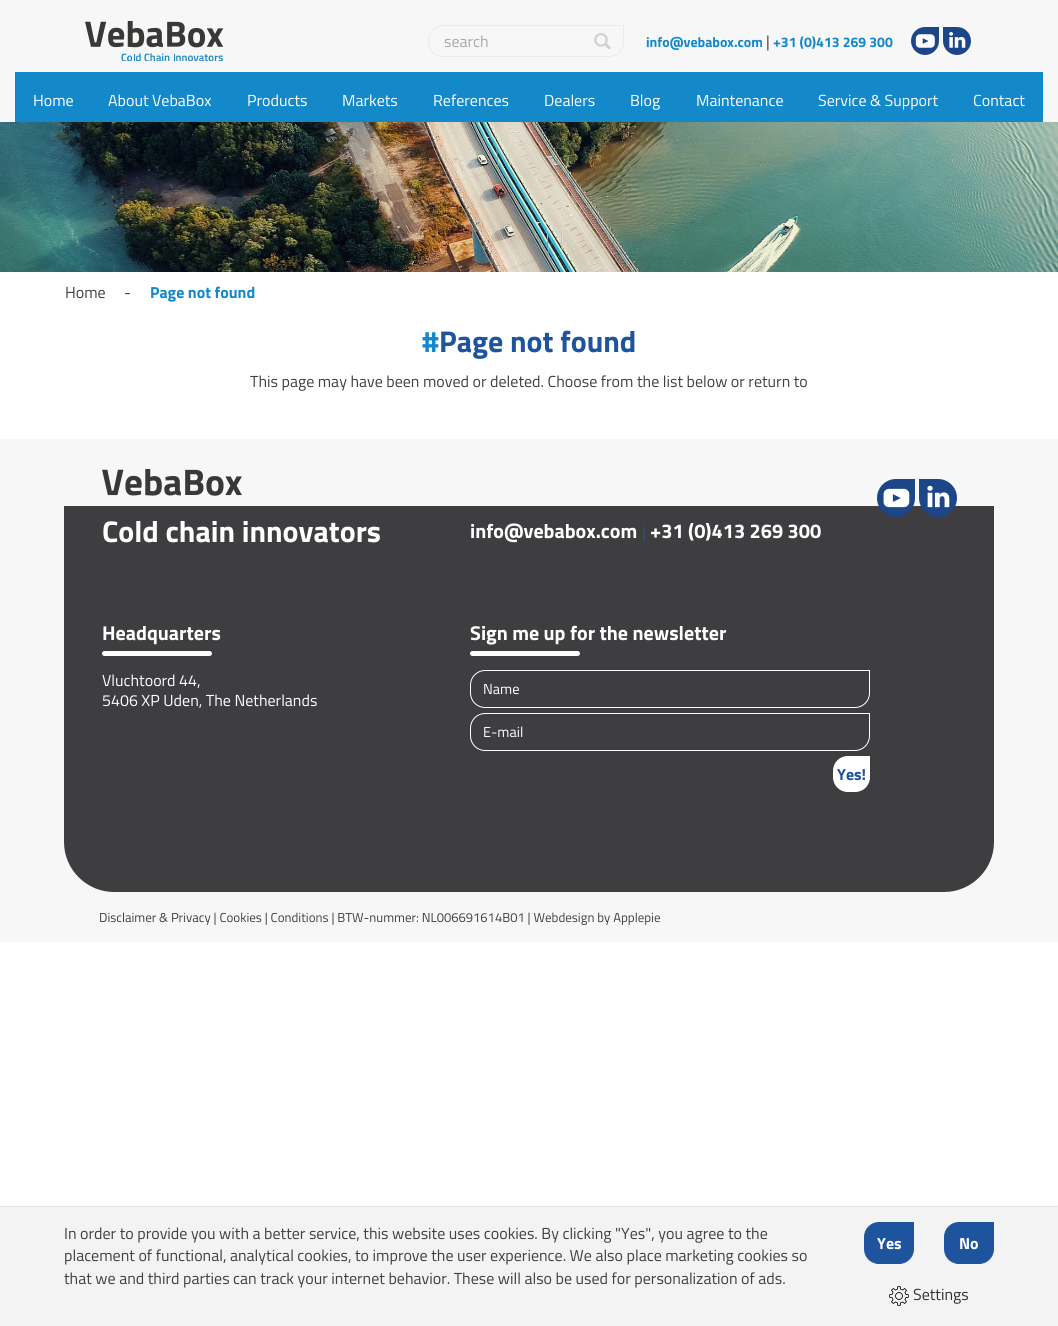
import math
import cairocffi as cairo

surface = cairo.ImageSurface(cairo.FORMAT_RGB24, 1058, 1326)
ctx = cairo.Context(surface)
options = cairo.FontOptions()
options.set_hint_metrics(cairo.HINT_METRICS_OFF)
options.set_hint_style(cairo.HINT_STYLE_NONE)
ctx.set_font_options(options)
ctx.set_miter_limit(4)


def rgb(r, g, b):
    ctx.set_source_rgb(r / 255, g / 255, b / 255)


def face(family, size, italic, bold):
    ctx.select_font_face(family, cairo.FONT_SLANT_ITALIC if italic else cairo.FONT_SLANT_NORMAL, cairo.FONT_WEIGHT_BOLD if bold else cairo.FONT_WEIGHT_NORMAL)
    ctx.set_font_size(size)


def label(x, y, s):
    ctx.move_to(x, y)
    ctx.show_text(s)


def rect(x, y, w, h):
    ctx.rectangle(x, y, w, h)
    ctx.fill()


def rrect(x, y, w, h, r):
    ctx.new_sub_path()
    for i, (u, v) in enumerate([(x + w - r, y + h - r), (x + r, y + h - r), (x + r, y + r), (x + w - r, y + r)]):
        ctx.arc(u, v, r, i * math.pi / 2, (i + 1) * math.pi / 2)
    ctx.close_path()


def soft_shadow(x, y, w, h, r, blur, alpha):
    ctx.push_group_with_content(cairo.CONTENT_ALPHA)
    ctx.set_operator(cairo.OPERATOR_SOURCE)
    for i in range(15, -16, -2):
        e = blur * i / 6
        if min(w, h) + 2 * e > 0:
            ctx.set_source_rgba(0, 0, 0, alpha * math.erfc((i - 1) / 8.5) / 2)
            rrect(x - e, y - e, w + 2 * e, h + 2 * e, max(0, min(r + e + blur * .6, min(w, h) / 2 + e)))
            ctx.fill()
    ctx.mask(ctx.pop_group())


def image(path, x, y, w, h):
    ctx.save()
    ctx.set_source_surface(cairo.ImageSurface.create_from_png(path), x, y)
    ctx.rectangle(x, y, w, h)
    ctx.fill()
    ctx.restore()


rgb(255, 255, 255)
ctx.paint()
rgb(247, 247, 247)
rect(0, 0, 1058, 122)
image('image0.png', 85, 21, 139, 40)
ctx.new_path()
ctx.move_to(443, 25.5)
ctx.line_to(623.5, 25.5)
ctx.line_to(623.5, 42)
ctx.curve_to(623.5, 50, 617, 56.5, 609, 56.5)
ctx.line_to(443, 56.5)
ctx.curve_to(435, 56.5, 428.5, 50, 428.5, 42)
ctx.line_to(428.5, 40)
ctx.curve_to(428.5, 32, 435, 25.5, 443, 25.5)
ctx.close_path()
rgb(235, 235, 235)
ctx.set_line_width(1)
ctx.stroke()
face('Titillium Web', 16, 0, 0)
rgb(168, 168, 168)
label(444, 47, 'search')
image('image1.png', 594, 33, 17, 16)
face('Titillium Web', 14, 0, 1)
rgb(20, 137, 201)
label(646, 47, 'info@vebabox.com')
face('Titillium Web', 16, 0, 0)
rgb(65, 65, 65)
label(766, 47, '|')
face('Titillium Web', 14, 0, 1)
rgb(20, 137, 201)
label(773, 47, '+31 (0)413 269 300')
image('image2.png', 911, 27, 28, 28)
image('image3.png', 943, 27, 28, 28)
rect(15, 72, 1028, 50)
face('Titillium Web', 16, 0, 0)
rgb(255, 255, 255)
label(33, 106, 'Home')
label(108, 106, 'About VebaBox')
label(247, 106, 'Products')
label(342, 106, 'Markets')
label(433, 106, 'References')
label(544, 106, 'Dealers')
label(630, 106, 'Blog')
label(696, 106, 'Maintenance')
label(818, 106, 'Service & Support')
label(973, 106, 'Contact')
image('image4.png', 0, 122, 1058, 150)
rgb(65, 65, 65)
label(65, 298, 'Home')
label(124, 298, '-')
face('Titillium Web', 16, 0, 1)
rgb(20, 137, 201)
label(150, 298, 'Page not found')
face('Titillium Web', 30, 0, 1)
label(422, 352, '#')
rgb(30, 84, 158)
label(439, 352, 'Page not found')
face('Titillium Web', 16, 0, 0)
rgb(65, 65, 65)
label(250, 387, 'This page may have been moved or deleted. Choose from the list below or return to')
rgb(247, 247, 247)
rect(0, 439, 1058, 503)
image('image5.png', 102, 469, 140, 27)
rgb(62, 61, 64)
ctx.new_path()
ctx.move_to(64, 506)
ctx.line_to(994, 506)
ctx.line_to(994, 842)
ctx.curve_to(994, 869.5, 971.5, 892, 944, 892)
ctx.line_to(114, 892)
ctx.curve_to(86.5, 892, 64, 869.5, 64, 842)
ctx.close_path()
ctx.fill()
image('image6.png', 877, 479, 38, 38)
image('image7.png', 919, 479, 38, 38)
face('Titillium Web', 30, 0, 1)
rgb(255, 255, 255)
label(102, 542, 'Cold chain innovators')
face('Titillium Web', 20, 0, 1)
label(470, 538, 'info@vebabox.com')
face('Titillium Web', 16, 0, 0)
rgb(30, 84, 158)
label(642, 538, '|')
face('Titillium Web', 20, 0, 1)
rgb(255, 255, 255)
label(650, 538, '+31 (0)413 269 300')
label(102, 640, 'Headquarters')
rrect(102, 651, 110, 5, 2.5)
ctx.fill()
face('Titillium Web', 16, 0, 0)
label(102, 686, 'Vluchtoord 44,')
label(102, 706, '5406 XP Uden, The Netherlands')
face('Titillium Web', 20, 0, 1)
label(470, 640, 'Sign me up for the newsletter')
rrect(470, 651, 110, 5, 2.5)
ctx.fill()
ctx.new_path()
ctx.move_to(485, 670.5)
ctx.line_to(869.5, 670.5)
ctx.line_to(869.5, 693)
ctx.curve_to(869.5, 701, 863, 707.5, 855, 707.5)
ctx.line_to(485, 707.5)
ctx.curve_to(477, 707.5, 470.5, 701, 470.5, 693)
ctx.line_to(470.5, 685)
ctx.curve_to(470.5, 677, 477, 670.5, 485, 670.5)
ctx.close_path()
ctx.stroke()
face('Titillium Web', 14.5, 0, 0)
label(483, 694, 'Name')
ctx.new_path()
ctx.move_to(485, 713.5)
ctx.line_to(869.5, 713.5)
ctx.line_to(869.5, 736)
ctx.curve_to(869.5, 744, 863, 750.5, 855, 750.5)
ctx.line_to(485, 750.5)
ctx.curve_to(477, 750.5, 470.5, 744, 470.5, 736)
ctx.line_to(470.5, 728)
ctx.curve_to(470.5, 720, 477, 713.5, 485, 713.5)
ctx.close_path()
ctx.stroke()
label(483, 737, 'E-mail')
ctx.new_path()
ctx.move_to(848, 756)
ctx.line_to(870, 756)
ctx.line_to(870, 777)
ctx.curve_to(870, 785.5, 863.5, 792, 855, 792)
ctx.line_to(848, 792)
ctx.curve_to(839.5, 792, 833, 785.5, 833, 777)
ctx.line_to(833, 771)
ctx.curve_to(833, 762.5, 839.5, 756, 848, 756)
ctx.close_path()
ctx.fill()
face('Titillium Web', 16, 0, 1)
rgb(30, 84, 158)
label(837, 780, 'Yes!')
face('Titillium Web', 13, 0, 0)
rgb(65, 65, 65)
label(99, 922, 'Disclaimer & Privacy | Cookies | Conditions | BTW-nummer: NL006691614B01 | Webdesign by Applepie')
rgb(0, 0, 0)
soft_shadow(0, 1207, 1058, 119, 0, 1, 0.3)
rgb(243, 243, 243)
rect(0, 1207, 1058, 119)
face('Titillium Web', 16, 0, 0)
rgb(65, 65, 65)
label(64, 1239, 'In order to provide you with a better service, this website uses cookies. By clicking "Yes", you agree to the')
label(64, 1261, 'placement of functional, analytical cookies, to improve the user experience. We also place marketing cookies so')
label(64, 1284, 'that we and third parties can track your internet behavior. These will also be used for personalization of ads.')
rgb(30, 84, 158)
ctx.new_path()
ctx.move_to(879, 1222.5)
ctx.line_to(913.5, 1222.5)
ctx.line_to(913.5, 1249)
ctx.curve_to(913.5, 1257, 907, 1263.5, 899, 1263.5)
ctx.line_to(879, 1263.5)
ctx.curve_to(871, 1263.5, 864.5, 1257, 864.5, 1249)
ctx.line_to(864.5, 1237)
ctx.curve_to(864.5, 1229, 871, 1222.5, 879, 1222.5)
ctx.close_path()
ctx.fill_preserve()
ctx.stroke()
face('Titillium Web', 16, 0, 1)
rgb(255, 255, 255)
label(877, 1249, 'Yes')
rgb(30, 84, 158)
ctx.new_path()
ctx.move_to(959, 1222.5)
ctx.line_to(993.5, 1222.5)
ctx.line_to(993.5, 1249)
ctx.curve_to(993.5, 1257, 987, 1263.5, 979, 1263.5)
ctx.line_to(959, 1263.5)
ctx.curve_to(951, 1263.5, 944.5, 1257, 944.5, 1249)
ctx.line_to(944.5, 1237)
ctx.curve_to(944.5, 1229, 951, 1222.5, 959, 1222.5)
ctx.close_path()
ctx.fill_preserve()
ctx.stroke()
rgb(255, 255, 255)
label(959, 1249, 'No')
image('image8.png', 889, 1286, 20, 20)
face('Titillium Web', 16, 0, 0)
rgb(51, 51, 51)
label(913, 1300, 'Settings')
surface.write_to_png('render.png')
